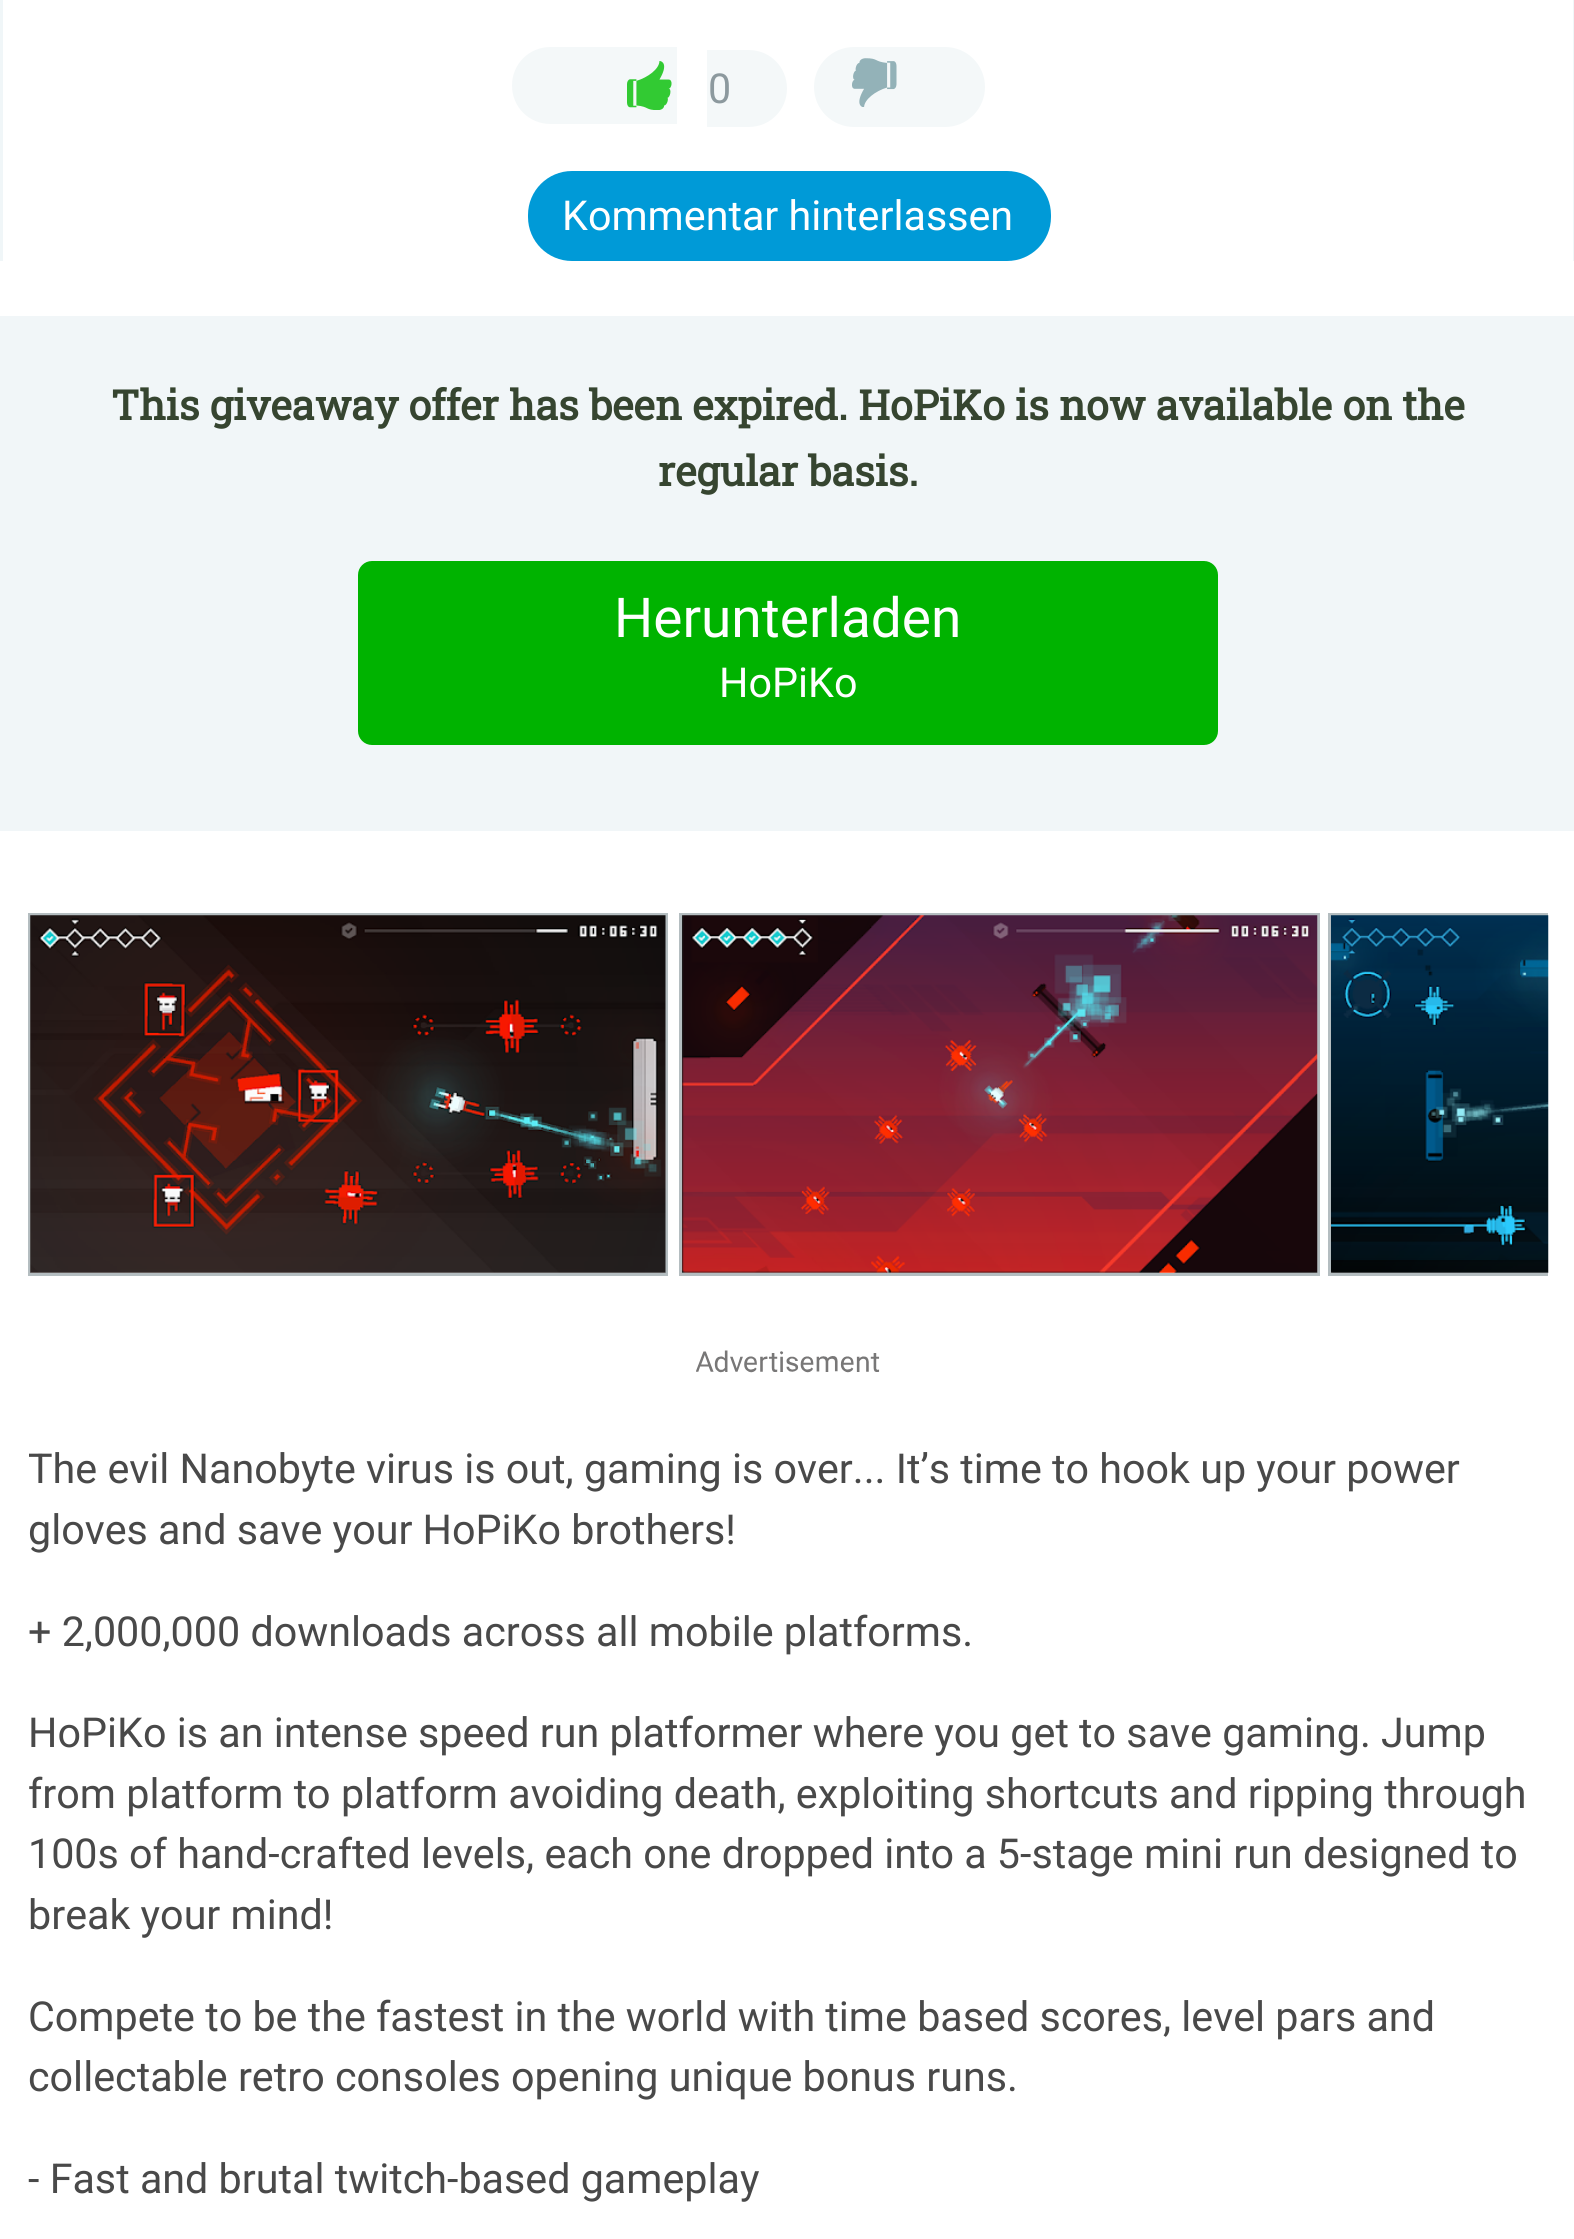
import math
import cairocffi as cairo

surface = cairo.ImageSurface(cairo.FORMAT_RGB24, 1574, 2239)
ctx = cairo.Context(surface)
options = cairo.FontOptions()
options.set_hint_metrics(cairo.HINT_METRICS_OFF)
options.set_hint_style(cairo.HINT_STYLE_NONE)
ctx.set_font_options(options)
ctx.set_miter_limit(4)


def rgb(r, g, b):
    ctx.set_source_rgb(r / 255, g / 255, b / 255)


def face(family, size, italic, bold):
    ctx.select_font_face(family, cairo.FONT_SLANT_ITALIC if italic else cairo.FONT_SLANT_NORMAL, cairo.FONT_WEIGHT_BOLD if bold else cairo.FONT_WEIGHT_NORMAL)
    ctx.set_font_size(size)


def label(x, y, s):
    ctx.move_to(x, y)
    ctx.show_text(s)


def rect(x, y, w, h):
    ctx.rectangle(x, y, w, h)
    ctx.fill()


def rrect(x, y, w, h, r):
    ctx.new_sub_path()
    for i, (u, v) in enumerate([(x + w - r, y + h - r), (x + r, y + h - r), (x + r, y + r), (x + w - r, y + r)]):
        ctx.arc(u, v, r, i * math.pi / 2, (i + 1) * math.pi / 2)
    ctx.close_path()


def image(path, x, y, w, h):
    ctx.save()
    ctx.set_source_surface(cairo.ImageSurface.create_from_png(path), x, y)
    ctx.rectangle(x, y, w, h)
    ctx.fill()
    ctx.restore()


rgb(255, 255, 255)
ctx.paint()
rgb(240, 246, 248)
rect(1573, 0, 1, 261)
rect(0, 0, 3, 261)
rgb(244, 248, 249)
ctx.new_path()
ctx.move_to(550.5, 47)
ctx.line_to(677, 47)
ctx.line_to(677, 124)
ctx.line_to(550.5, 124)
ctx.curve_to(529, 124, 512, 107, 512, 85.5)
ctx.curve_to(512, 64, 529, 47, 550.5, 47)
ctx.close_path()
ctx.fill()
ctx.new_path()
ctx.move_to(707, 50)
ctx.line_to(748.5, 50)
ctx.curve_to(770, 50, 787, 67, 787, 88.5)
ctx.curve_to(787, 110, 770, 127, 748.5, 127)
ctx.line_to(707, 127)
ctx.close_path()
ctx.fill()
image('image0.png', 627, 61, 45, 49)
face('Roboto', 41.25, 0, 0)
rgb(140, 153, 158)
label(708, 103, '0')
rgb(244, 248, 249)
rrect(814, 47, 171, 80, 40)
ctx.fill()
image('image1.png', 852, 58, 45, 49)
rgb(0, 154, 215)
rrect(528, 171, 523, 90, 44)
ctx.fill()
rgb(255, 255, 255)
label(562, 230, 'Kommentar hinterlassen')
rgb(241, 246, 248)
rect(0, 316, 1574, 515)
face('Roboto Slab', 41.25, 0, 1)
rgb(54, 69, 48)
label(111, 420, 'This giveaway offer has been expired. HoPiKo is now available on the')
label(658, 486, 'regular basis.')
rgb(0, 179, 0)
rrect(358, 561, 860, 184, 14)
ctx.fill()
face('Roboto', 55, 0, 0)
rgb(255, 255, 255)
label(614, 637, 'Herunterladen')
face('Roboto', 41.25, 0, 0)
label(719, 697, 'HoPiKo')
ctx.rectangle(29.5, 914.5, 637, 360)
rgb(180, 189, 192)
ctx.set_line_width(3)
ctx.stroke()
ctx.rectangle(680.5, 914.5, 638, 360)
ctx.stroke()
ctx.save()
ctx.rectangle(28, 913, 1520, 371)
ctx.clip()
ctx.rectangle(1329.5, 914.5, 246, 360)
ctx.stroke()
ctx.restore()
image('image2.png', 30, 915, 636, 358)
image('image3.png', 682, 915, 636, 358)
image('image4.png', 1331, 915, 218, 358)
image('image5.png', 696, 1350, 184, 23)
rgb(73, 73, 73)
label(28, 1483, 'The evil Nanobyte virus is out, gaming is over... It’s time to hook up your power')
label(28, 1544, 'gloves and save your HoPiKo brothers!')
label(28, 1646, '+ 2,000,000 downloads across all mobile platforms.')
label(28, 1747, 'HoPiKo is an intense speed run platformer where you get to save gaming. Jump')
label(28, 1808, 'from platform to platform avoiding death, exploiting shortcuts and ripping through')
label(28, 1868, '100s of hand-crafted levels, each one dropped into a 5-stage mini run designed to')
label(28, 1929, 'break your mind!')
label(28, 2031, 'Compete to be the fastest in the world with time based scores, level pars and')
label(28, 2091, 'collectable retro consoles opening unique bonus runs.')
label(28, 2193, '- Fast and brutal twitch-based gameplay')
surface.write_to_png('render.png')
